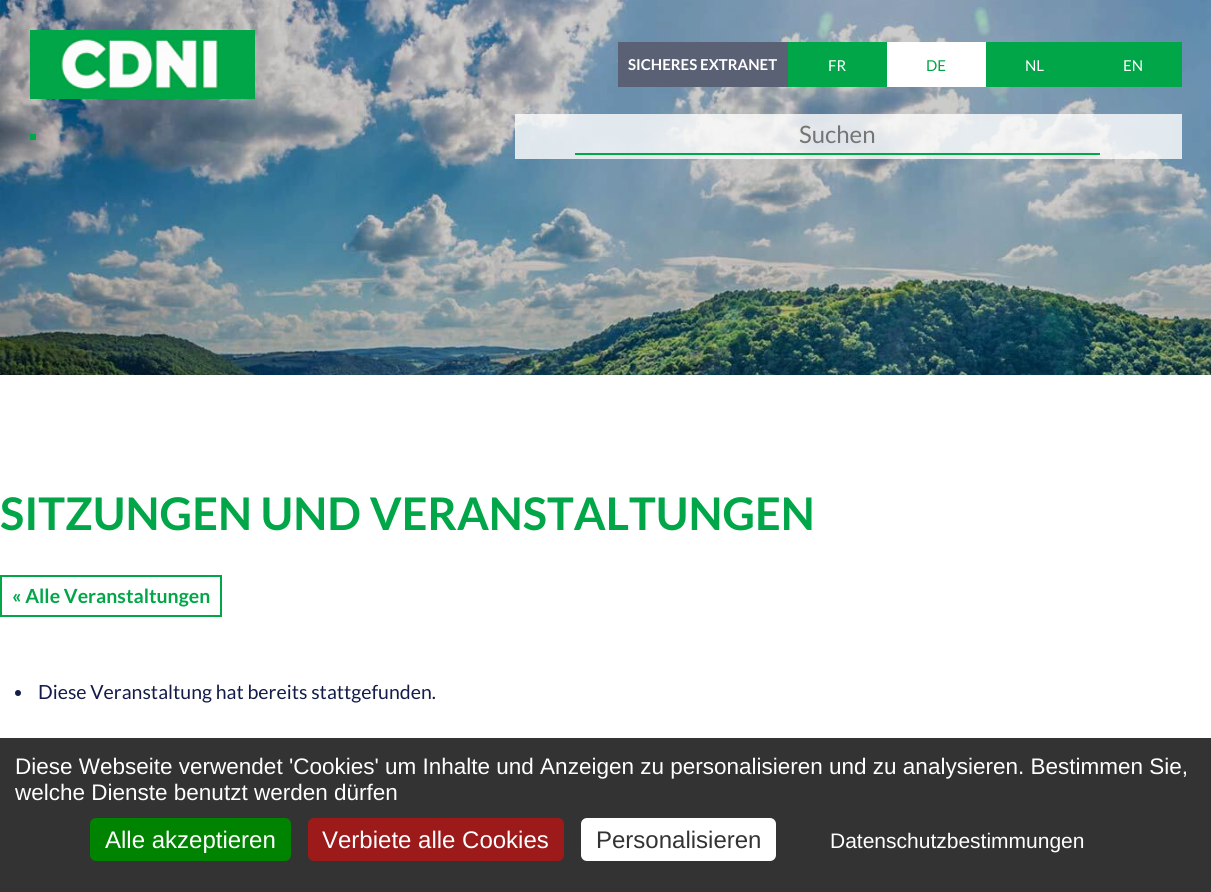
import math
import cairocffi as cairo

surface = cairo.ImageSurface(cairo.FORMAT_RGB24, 1211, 892)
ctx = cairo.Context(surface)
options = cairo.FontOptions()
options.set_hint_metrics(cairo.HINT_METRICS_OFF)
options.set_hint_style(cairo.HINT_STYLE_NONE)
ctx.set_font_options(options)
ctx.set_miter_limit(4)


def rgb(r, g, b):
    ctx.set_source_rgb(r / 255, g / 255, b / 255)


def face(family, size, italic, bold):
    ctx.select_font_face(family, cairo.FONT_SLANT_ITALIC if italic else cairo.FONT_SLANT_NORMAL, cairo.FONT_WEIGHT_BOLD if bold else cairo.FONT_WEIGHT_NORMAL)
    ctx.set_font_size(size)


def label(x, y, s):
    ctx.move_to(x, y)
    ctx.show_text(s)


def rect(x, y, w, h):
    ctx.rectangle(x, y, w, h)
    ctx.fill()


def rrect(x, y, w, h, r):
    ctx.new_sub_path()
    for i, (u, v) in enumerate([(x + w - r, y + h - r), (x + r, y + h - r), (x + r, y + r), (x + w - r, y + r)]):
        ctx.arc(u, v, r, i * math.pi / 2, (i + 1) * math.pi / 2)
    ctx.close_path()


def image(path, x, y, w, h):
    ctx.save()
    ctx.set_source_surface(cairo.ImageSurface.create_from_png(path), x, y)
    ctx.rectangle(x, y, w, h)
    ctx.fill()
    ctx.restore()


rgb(255, 255, 255)
ctx.paint()
image('image0.png', 0, 0, 1211, 375)
ctx.set_source_rgba(0, 0, 0, 0.2)
rect(0, 0, 1211, 375)
image('image1.png', 30, 30, 225, 69)
rgb(91, 97, 116)
rect(618, 42, 170, 45)
face('Lato', 15, 0, 1)
rgb(255, 255, 255)
label(628, 70, 'SICHERES EXTRANET')
rgb(0, 166, 72)
rect(788, 42, 99, 45)
face('Lato', 15, 0, 0)
rgb(255, 255, 255)
label(828, 71, 'FR')
rect(887, 42, 99, 45)
rgb(0, 166, 72)
label(926, 71, 'DE')
rect(986, 42, 196, 45)
rgb(255, 255, 255)
label(1025, 71, 'NL')
label(1123, 71, 'EN')
rgb(0, 166, 72)
rect(30, 134, 6, 6)
ctx.set_source_rgba(1, 1, 1, 0.8)
rect(515, 114, 667, 45)
rgb(0, 166, 72)
rect(575, 153, 525, 2)
face('Lato', 24, 0, 0)
rgb(117, 117, 117)
label(799, 143, 'Suchen')
face('Lato', 45, 0, 1)
rgb(0, 166, 72)
label(0, 530, 'SITZUNGEN UND VERANSTALTUNGEN')
ctx.rectangle(1, 576, 220, 40)
ctx.stroke()
face('Lato', 19.5, 0, 1)
label(12, 603, '« Alle Veranstaltungen')
rgb(19, 27, 74)
ctx.new_path()
ctx.arc(18, 693, 3, 0, 2 * math.pi)
ctx.fill()
face('Lato', 19.5, 0, 0)
label(38, 699, 'Diese Veranstaltung hat bereits stattgefunden.')
rgb(51, 51, 51)
rect(0, 738, 1211, 154)
face('Liberation Sans', 22.5, 0, 0)
rgb(255, 255, 255)
label(15, 774, 'Diese Webseite verwendet \'Cookies\' um Inhalte und Anzeigen zu personalisieren und zu analysieren. Bestimmen Sie,')
label(15, 800, 'welche Dienste benutzt werden dürfen')
rgb(0, 131, 0)
rrect(90, 818, 201, 43, 6)
ctx.fill()
face('Liberation Sans', 24, 0, 0)
rgb(255, 255, 255)
label(105, 848, 'Alle akzeptieren')
rgb(156, 26, 26)
rrect(308, 818, 256, 43, 6)
ctx.fill()
rgb(255, 255, 255)
label(322, 848, 'Verbiete alle Cookies')
rrect(581, 818, 195, 43, 6)
ctx.fill()
rgb(51, 51, 51)
label(596, 848, 'Personalisieren')
face('Liberation Sans', 21, 0, 0)
rgb(255, 255, 255)
label(830, 848, 'Datenschutzbestimmungen')
surface.write_to_png('render.png')
